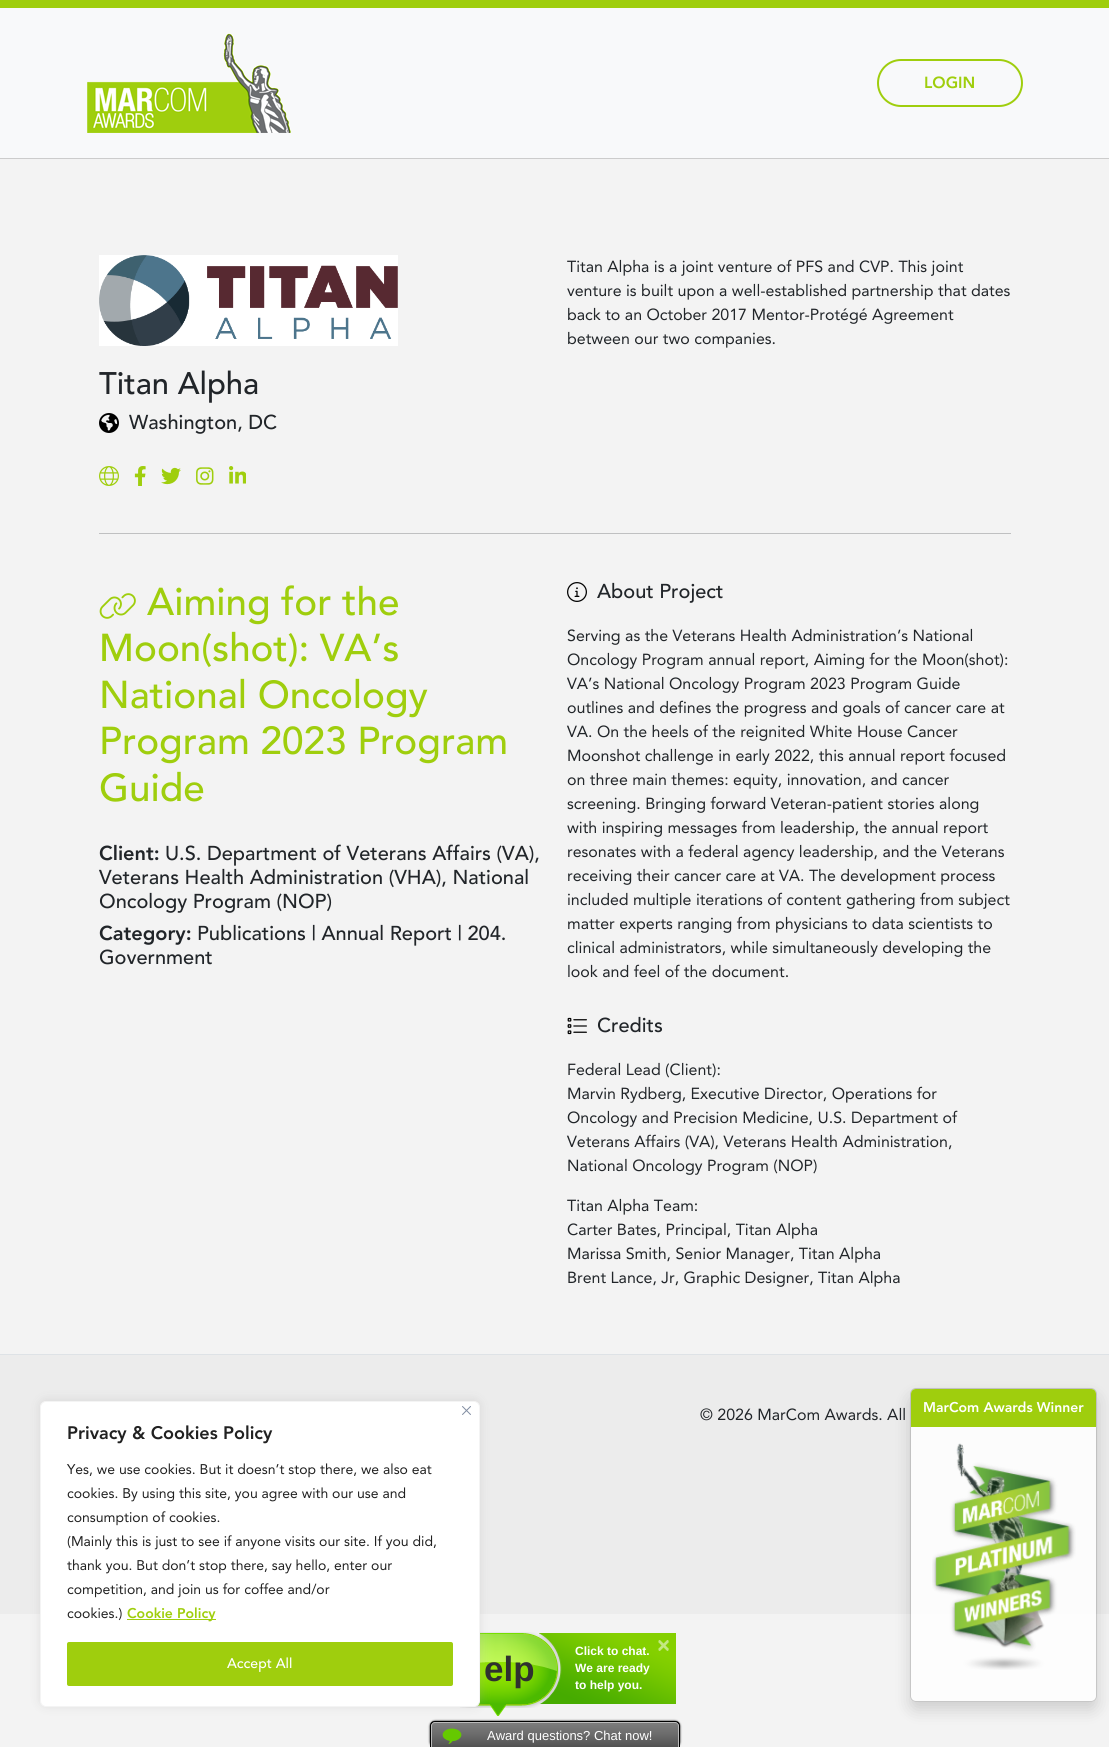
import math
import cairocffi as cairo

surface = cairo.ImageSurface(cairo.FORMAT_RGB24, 1109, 1747)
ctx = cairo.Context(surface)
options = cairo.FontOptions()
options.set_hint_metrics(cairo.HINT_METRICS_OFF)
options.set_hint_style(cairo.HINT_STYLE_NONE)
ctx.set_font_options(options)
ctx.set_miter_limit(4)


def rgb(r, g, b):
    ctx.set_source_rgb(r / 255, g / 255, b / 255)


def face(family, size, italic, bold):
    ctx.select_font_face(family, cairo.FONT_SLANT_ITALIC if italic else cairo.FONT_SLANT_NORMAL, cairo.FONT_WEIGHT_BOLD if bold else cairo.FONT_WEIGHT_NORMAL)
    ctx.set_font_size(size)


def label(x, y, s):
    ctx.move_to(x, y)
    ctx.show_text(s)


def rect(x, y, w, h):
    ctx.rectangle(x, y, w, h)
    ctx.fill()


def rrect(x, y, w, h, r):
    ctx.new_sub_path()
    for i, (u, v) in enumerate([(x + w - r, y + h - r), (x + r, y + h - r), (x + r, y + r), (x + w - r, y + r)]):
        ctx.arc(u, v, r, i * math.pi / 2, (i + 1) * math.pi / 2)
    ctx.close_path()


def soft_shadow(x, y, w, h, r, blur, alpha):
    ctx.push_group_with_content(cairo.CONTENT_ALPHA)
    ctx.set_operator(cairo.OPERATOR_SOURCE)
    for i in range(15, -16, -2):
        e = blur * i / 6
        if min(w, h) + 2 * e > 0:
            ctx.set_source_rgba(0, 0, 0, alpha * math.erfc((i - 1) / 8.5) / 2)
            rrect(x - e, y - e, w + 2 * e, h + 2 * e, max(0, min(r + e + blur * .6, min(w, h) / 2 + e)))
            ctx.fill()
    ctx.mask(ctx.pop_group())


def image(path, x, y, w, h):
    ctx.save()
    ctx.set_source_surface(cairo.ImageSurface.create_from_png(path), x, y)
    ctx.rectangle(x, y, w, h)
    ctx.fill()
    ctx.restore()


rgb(243, 243, 243)
ctx.paint()
rgb(248, 249, 250)
rect(0, 8, 1109, 150)
rgb(159, 206, 13)
rect(0, 0, 1109, 8)
rgb(204, 204, 204)
rect(0, 158, 1109, 1)
image('image0.png', 87, 33, 204, 100)
rrect(878, 60, 144, 46, 23)
rgb(159, 206, 13)
ctx.stroke()
face('Avenir Black', 16, 0, 0)
label(924, 88, 'LOGIN')
face('Avenir', 16, 0, 0)
rgb(33, 37, 41)
label(567, 272, 'Titan Alpha is a joint venture of PFS and CVP. This joint')
label(567, 296, 'venture is built upon a well-established partnership that dates')
label(567, 320, 'back to an October 2017 Mentor-Protégé Agreement')
label(567, 344, 'between our two companies.')
image('image1.png', 99, 255, 299, 91)
face('Avenir Medium', 31, 0, 0)
label(99, 394, 'Titan Alpha')
image('image2.png', 99, 413, 20, 20)
face('Avenir Medium', 20, 0, 0)
label(129, 429, 'Washington, DC')
image('image3.png', 99, 466, 20, 20)
image('image4.png', 134, 466, 12, 20)
image('image5.png', 161, 467, 20, 18)
image('image6.png', 196, 467, 18, 18)
image('image7.png', 229, 466, 17, 18)
rgb(191, 192, 193)
rect(99, 533, 912, 1)
image('image8.png', 99, 593, 37, 26)
face('Avenir Medium', 38.6, 0, 0)
rgb(159, 206, 13)
label(147, 615, 'Aiming for the')
label(99, 661, 'Moon(shot): VA’s')
label(99, 708, 'National Oncology')
label(99, 754, 'Program 2023 Program')
label(99, 801, 'Guide')
face('Avenir Black', 20, 0, 0)
rgb(33, 37, 41)
label(99, 860, 'Client:')
face('Avenir Medium', 20, 0, 0)
label(165, 860, 'U.S. Department of Veterans Affairs (VA),')
label(99, 884, 'Veterans Health Administration (VHA), National')
label(99, 908, 'Oncology Program (NOP)')
face('Avenir Black', 20, 0, 0)
label(99, 940, 'Category:')
face('Avenir Medium', 20, 0, 0)
label(197, 940, 'Publications | Annual Report | 204.')
label(99, 964, 'Government')
image('image9.png', 567, 582, 20, 20)
label(597, 598, 'About Project')
face('Avenir', 16, 0, 0)
label(567, 641, 'Serving as the Veterans Health Administration’s National')
label(567, 665, 'Oncology Program annual report, Aiming for the Moon(shot):')
label(567, 689, 'VA’s National Oncology Program 2023 Program Guide')
label(567, 713, 'outlines and defines the progress and goals of cancer care at')
label(567, 737, 'VA. On the heels of the reignited White House Cancer')
label(567, 761, 'Moonshot challenge in early 2022, this annual report focused')
label(567, 785, 'on three main themes: equity, innovation, and cancer')
label(567, 809, 'screening. Bringing forward Veteran-patient stories along')
label(567, 833, 'with inspiring messages from leadership, the annual report')
label(567, 857, 'resonates with a federal agency leadership, and the Veterans')
label(567, 881, 'receiving their cancer care at VA. The development process')
label(567, 905, 'included multiple iterations of content gathering from subject')
label(567, 929, 'matter experts ranging from physicians to data scientists to')
label(567, 953, 'clinical administrators, while simultaneously developing the')
label(567, 977, 'look and feel of the document.')
image('image10.png', 567, 1017, 20, 18)
face('Avenir Medium', 20, 0, 0)
label(597, 1032, 'Credits')
face('Avenir', 16, 0, 0)
label(567, 1075, 'Federal Lead (Client):')
label(567, 1099, 'Marvin Rydberg, Executive Director, Operations for')
label(567, 1123, 'Oncology and Precision Medicine, U.S. Department of')
label(567, 1147, 'Veterans Affairs (VA), Veterans Health Administration,')
label(567, 1171, 'National Oncology Program (NOP)')
label(567, 1211, 'Titan Alpha Team:')
label(567, 1235, 'Carter Bates, Principal, Titan Alpha')
label(567, 1259, 'Marissa Smith, Senior Manager, Titan Alpha')
label(567, 1283, 'Brent Lance, Jr, Graphic Designer, Titan Alpha')
rgb(236, 236, 236)
rect(0, 1355, 1109, 259)
ctx.save()
ctx.set_fill_rule(cairo.FILL_RULE_EVEN_ODD)
ctx.new_path()
ctx.move_to(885, 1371)
ctx.line_to(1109, 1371)
ctx.line_to(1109, 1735)
ctx.line_to(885, 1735)
ctx.close_path()
ctx.move_to(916, 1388)
ctx.line_to(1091, 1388)
ctx.curve_to(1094.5, 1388, 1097, 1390.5, 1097, 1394)
ctx.line_to(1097, 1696)
ctx.curve_to(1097, 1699.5, 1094.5, 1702, 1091, 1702)
ctx.line_to(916, 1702)
ctx.curve_to(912.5, 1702, 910, 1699.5, 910, 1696)
ctx.line_to(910, 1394)
ctx.curve_to(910, 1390.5, 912.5, 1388, 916, 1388)
ctx.close_path()
ctx.clip()
rgb(0, 0, 0)
soft_shadow(910, 1396, 187, 314, 6, 8, 0.15)
ctx.restore()
ctx.set_source_rgba(1, 1, 1, 0.85)
rrect(911, 1389, 185, 312, 5)
ctx.fill()
rrect(910.5, 1388.5, 186, 313, 5.5)
ctx.set_source_rgba(0, 0, 0, 0.18)
ctx.set_line_width(1)
ctx.stroke()
rgb(159, 206, 13)
ctx.new_path()
ctx.move_to(916, 1389)
ctx.line_to(1091, 1389)
ctx.curve_to(1094, 1389, 1096, 1391, 1096, 1394)
ctx.line_to(1096, 1426)
ctx.line_to(911, 1426)
ctx.line_to(911, 1394)
ctx.curve_to(911, 1391, 913, 1389, 916, 1389)
ctx.close_path()
ctx.fill()
rect(911, 1426, 185, 1)
face('Avenir Black', 14, 0, 0)
rgb(255, 255, 255)
label(923, 1412, 'MarCom Awards Winner')
image('image11.png', 932, 1443, 144, 227)
rgb(222, 226, 230)
rect(0, 1354, 1109, 1)
face('Avenir', 16, 0, 0)
rgb(33, 37, 41)
label(700, 1420, '© 2026 MarCom Awards. All')
image('image13.png', 460, 1632, 35, 76)
image('image14.png', 495, 1632, 7, 72)
image('image15.png', 502, 1632, 57, 76)
image('image16.png', 490, 1704, 16, 12)
rgb(0, 0, 0)
soft_shadow(430, 1721, 250, 26, 5, 1, 1)
rgb(123, 123, 123)
ctx.new_path()
ctx.move_to(435, 1721)
ctx.line_to(675, 1721)
ctx.curve_to(678, 1721, 680, 1723, 680, 1726)
ctx.line_to(680, 1747)
ctx.line_to(430, 1747)
ctx.line_to(430, 1726)
ctx.curve_to(430, 1723, 432, 1721, 435, 1721)
ctx.close_path()
ctx.fill()
image('image19.png', 430, 1724, 250, 23)
rgb(0, 0, 0)
ctx.set_fill_rule(cairo.FILL_RULE_EVEN_ODD)
ctx.new_path()
ctx.move_to(435, 1721)
ctx.line_to(675, 1721)
ctx.curve_to(678, 1721, 680, 1723, 680, 1726)
ctx.line_to(680, 1747)
ctx.line_to(430, 1747)
ctx.line_to(430, 1726)
ctx.curve_to(430, 1723, 432, 1721, 435, 1721)
ctx.close_path()
ctx.move_to(435, 1722)
ctx.line_to(675, 1722)
ctx.curve_to(677, 1722, 679, 1724, 679, 1726)
ctx.line_to(679, 1747)
ctx.line_to(431, 1747)
ctx.line_to(431, 1726)
ctx.curve_to(431, 1724, 433, 1722, 435, 1722)
ctx.close_path()
ctx.fill()
rgb(172, 171, 171)
soft_shadow(40, 1400, 440, 306, 6, 5, 0.3)
rgb(255, 255, 255)
rrect(40.5, 1401.5, 439, 305, 5.5)
ctx.fill_preserve()
rgb(244, 244, 244)
ctx.stroke()
image('image12.png', 462, 1406, 9, 9)
face('Avenir Black', 18, 0, 0)
rgb(33, 33, 33)
label(67, 1439, 'Privacy & Cookies Policy')
face('Avenir', 14, 0, 0)
label(67, 1474, 'Yes, we use cookies. But it doesn’t stop there, we also eat')
label(67, 1498, 'cookies. By using this site, you agree with our use and')
label(67, 1522, 'consumption of cookies.')
label(67, 1546, '(Mainly this is just to see if anyone visits our site. If you did,')
label(67, 1570, 'thank you. But don’t stop there, say hello, enter our')
label(67, 1594, 'competition, and join us for coffee and/or')
label(67, 1618, 'cookies.)')
rgb(159, 206, 13)
rect(127, 1619, 89, 1)
face('Avenir Black', 14, 0, 0)
label(127, 1618, 'Cookie Policy')
rrect(68, 1643, 384, 42, 1)
ctx.fill_preserve()
ctx.set_line_width(2)
ctx.stroke()
face('Avenir Medium', 14, 0, 0)
rgb(255, 255, 255)
label(227, 1668, 'Accept All')
face('Liberation Sans', 35, 0, 1)
rgb(47, 48, 48)
label(484, 1681, 'elp')
image('image17.png', 539, 1633, 137, 71)
face('Liberation Sans', 12, 0, 1)
rgb(255, 255, 255)
label(575, 1655, 'Click to chat.')
label(575, 1672, 'We are ready')
label(575, 1689, 'to help you.')
image('image18.png', 658, 1640, 11, 11)
image('image20.png', 442, 1728, 20, 16)
rgb(187, 187, 187)
ctx.new_path()
ctx.move_to(435, 1722)
ctx.line_to(675, 1722)
ctx.curve_to(677, 1722, 679, 1724, 679, 1726)
ctx.line_to(679, 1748)
ctx.line_to(431, 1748)
ctx.line_to(431, 1726)
ctx.curve_to(431, 1724, 433, 1722, 435, 1722)
ctx.close_path()
ctx.move_to(435, 1723)
ctx.line_to(675, 1723)
ctx.curve_to(677, 1723, 678, 1724, 678, 1726)
ctx.line_to(678, 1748)
ctx.line_to(432, 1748)
ctx.line_to(432, 1726)
ctx.curve_to(432, 1724, 433, 1723, 435, 1723)
ctx.close_path()
ctx.fill()
face('Liberation Sans', 13, 0, 0)
rgb(255, 255, 255)
label(487, 1740, 'Award questions? Chat now!')
surface.write_to_png('render.png')
